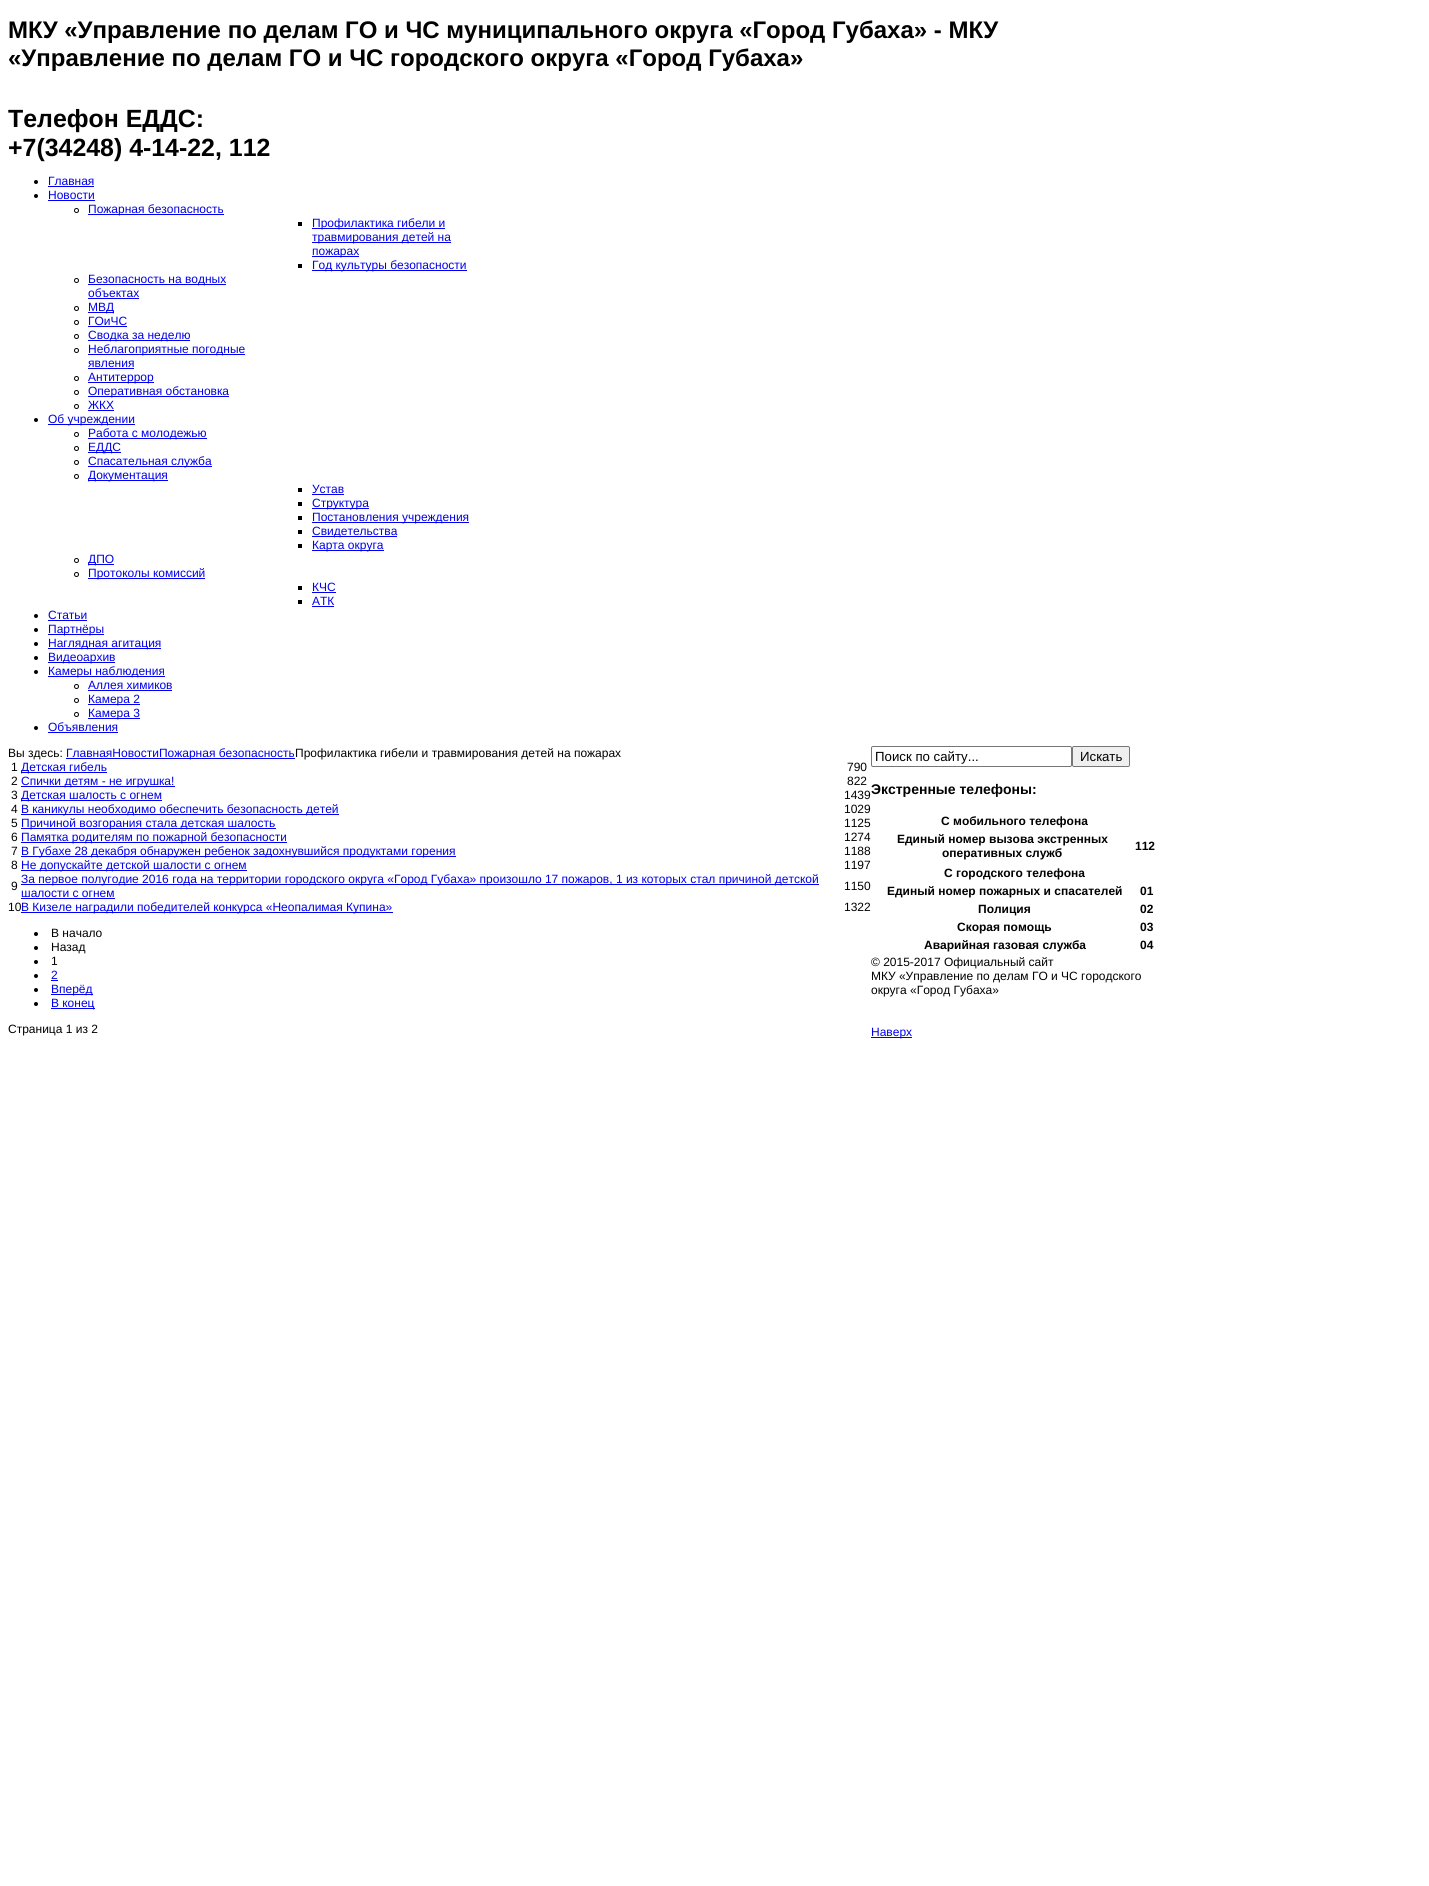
import math
import cairocffi as cairo

surface = cairo.ImageSurface(cairo.FORMAT_RGB24, 1429, 1886)
ctx = cairo.Context(surface)
options = cairo.FontOptions()
options.set_hint_metrics(cairo.HINT_METRICS_OFF)
options.set_hint_style(cairo.HINT_STYLE_NONE)
ctx.set_font_options(options)
ctx.set_miter_limit(4)


def rgb(r, g, b):
    ctx.set_source_rgb(r / 255, g / 255, b / 255)


def face(family, size, italic, bold):
    ctx.select_font_face(family, cairo.FONT_SLANT_ITALIC if italic else cairo.FONT_SLANT_NORMAL, cairo.FONT_WEIGHT_BOLD if bold else cairo.FONT_WEIGHT_NORMAL)
    ctx.set_font_size(size)


def label(x, y, s):
    ctx.move_to(x, y)
    ctx.show_text(s)


def rect(x, y, w, h):
    ctx.rectangle(x, y, w, h)
    ctx.fill()


def rrect(x, y, w, h, r):
    ctx.new_sub_path()
    for i, (u, v) in enumerate([(x + w - r, y + h - r), (x + r, y + h - r), (x + r, y + r), (x + w - r, y + r)]):
        ctx.arc(u, v, r, i * math.pi / 2, (i + 1) * math.pi / 2)
    ctx.close_path()


rgb(255, 255, 255)
ctx.paint()
face('Liberation Sans', 24, 0, 1)
rgb(0, 0, 0)
label(8, 38, 'МКУ «Управление по делам ГО и ЧС муниципального округа «Город Губаха» - МКУ')
label(8, 66, '«Управление по делам ГО и ЧС городского округа «Город Губаха»')
face('Liberation Sans', 24.9, 0, 1)
label(8, 127, 'Телефон ЕДДС:')
label(8, 156, '+7(34248) 4-14-22, 112')
ctx.new_path()
ctx.arc(36, 182, 2, 0, 2 * math.pi)
ctx.fill()
face('Liberation Sans', 12, 0, 0)
rgb(0, 0, 238)
label(48, 185, 'Главная')
rect(48, 186, 46, 1)
rgb(0, 0, 0)
ctx.new_path()
ctx.arc(36, 196, 2, 0, 2 * math.pi)
ctx.fill()
rgb(0, 0, 238)
label(48, 199, 'Новости')
rect(48, 200, 47, 1)
ctx.new_path()
ctx.arc(76.5, 210.5, 2, 0, 2 * math.pi)
rgb(0, 0, 0)
ctx.set_line_width(1)
ctx.stroke()
rgb(0, 0, 238)
rect(88, 214, 136, 1)
label(88, 213, 'Пожарная безопасность')
rgb(0, 0, 0)
rect(298, 222, 4, 4)
rgb(0, 0, 238)
rect(312, 228, 133, 1)
label(312, 227, 'Профилактика гибели и')
rect(312, 242, 139, 1)
label(312, 241, 'травмирования детей на')
rect(312, 256, 47, 1)
label(312, 255, 'пожарах')
rgb(0, 0, 0)
rect(298, 264, 4, 4)
rgb(0, 0, 238)
rect(312, 270, 155, 1)
label(312, 269, 'Год культуры безопасности')
ctx.new_path()
ctx.arc(76.5, 280.5, 2, 0, 2 * math.pi)
rgb(0, 0, 0)
ctx.stroke()
rgb(0, 0, 238)
rect(88, 284, 138, 1)
label(88, 283, 'Безопасность на водных')
label(88, 297, 'объектах')
rect(88, 298, 51, 1)
ctx.new_path()
ctx.arc(76.5, 308.5, 2, 0, 2 * math.pi)
rgb(0, 0, 0)
ctx.stroke()
rgb(0, 0, 238)
rect(88, 312, 26, 1)
label(88, 311, 'МВД')
ctx.new_path()
ctx.arc(76.5, 322.5, 2, 0, 2 * math.pi)
rgb(0, 0, 0)
ctx.stroke()
rgb(0, 0, 238)
label(88, 325, 'ГОиЧС')
rect(88, 326, 39, 1)
ctx.new_path()
ctx.arc(76.5, 336.5, 2, 0, 2 * math.pi)
rgb(0, 0, 0)
ctx.stroke()
rgb(0, 0, 238)
rect(88, 340, 102, 1)
label(88, 339, 'Сводка за неделю')
ctx.new_path()
ctx.arc(76.5, 350.5, 2, 0, 2 * math.pi)
rgb(0, 0, 0)
ctx.stroke()
rgb(0, 0, 238)
rect(88, 354, 157, 1)
label(88, 353, 'Неблагоприятные погодные')
label(88, 367, 'явления')
rect(88, 368, 46, 1)
ctx.new_path()
ctx.arc(76.5, 378.5, 2, 0, 2 * math.pi)
rgb(0, 0, 0)
ctx.stroke()
rgb(0, 0, 238)
rect(88, 382, 66, 1)
label(88, 381, 'Антитеррор')
ctx.new_path()
ctx.arc(76.5, 392.5, 2, 0, 2 * math.pi)
rgb(0, 0, 0)
ctx.stroke()
rgb(0, 0, 238)
rect(88, 396, 141, 1)
label(88, 395, 'Оперативная обстановка')
ctx.new_path()
ctx.arc(76.5, 406.5, 2, 0, 2 * math.pi)
rgb(0, 0, 0)
ctx.stroke()
rgb(0, 0, 238)
label(88, 409, 'ЖКХ')
rect(88, 410, 26, 1)
rgb(0, 0, 0)
ctx.new_path()
ctx.arc(36, 420, 2, 0, 2 * math.pi)
ctx.fill()
rgb(0, 0, 238)
rect(48, 424, 87, 1)
label(48, 423, 'Об учреждении')
ctx.new_path()
ctx.arc(76.5, 434.5, 2, 0, 2 * math.pi)
rgb(0, 0, 0)
ctx.stroke()
rgb(0, 0, 238)
rect(88, 438, 119, 1)
label(88, 437, 'Работа с молодежью')
ctx.new_path()
ctx.arc(76.5, 448.5, 2, 0, 2 * math.pi)
rgb(0, 0, 0)
ctx.stroke()
rgb(0, 0, 238)
rect(88, 452, 33, 1)
label(88, 451, 'ЕДДС')
ctx.new_path()
ctx.arc(76.5, 462.5, 2, 0, 2 * math.pi)
rgb(0, 0, 0)
ctx.stroke()
rgb(0, 0, 238)
rect(88, 466, 124, 1)
label(88, 465, 'Спасательная служба')
ctx.new_path()
ctx.arc(76.5, 476.5, 2, 0, 2 * math.pi)
rgb(0, 0, 0)
ctx.stroke()
rgb(0, 0, 238)
rect(88, 480, 80, 1)
label(88, 479, 'Документация')
rgb(0, 0, 0)
rect(298, 488, 4, 4)
rgb(0, 0, 238)
label(312, 493, 'Устав')
rect(312, 494, 32, 1)
rgb(0, 0, 0)
rect(298, 502, 4, 4)
rgb(0, 0, 238)
rect(312, 508, 57, 1)
label(312, 507, 'Структура')
rgb(0, 0, 0)
rect(298, 516, 4, 4)
rgb(0, 0, 238)
rect(312, 522, 157, 1)
label(312, 521, 'Постановления учреждения')
rgb(0, 0, 0)
rect(298, 530, 4, 4)
rgb(0, 0, 238)
rect(312, 536, 85, 1)
label(312, 535, 'Свидетельства')
rgb(0, 0, 0)
rect(298, 544, 4, 4)
rgb(0, 0, 238)
rect(312, 550, 72, 1)
label(312, 549, 'Карта округа')
ctx.new_path()
ctx.arc(76.5, 560.5, 2, 0, 2 * math.pi)
rgb(0, 0, 0)
ctx.stroke()
rgb(0, 0, 238)
rect(88, 564, 26, 1)
label(88, 563, 'ДПО')
ctx.new_path()
ctx.arc(76.5, 574.5, 2, 0, 2 * math.pi)
rgb(0, 0, 0)
ctx.stroke()
rgb(0, 0, 238)
rect(88, 578, 117, 1)
label(88, 577, 'Протоколы комиссий')
rgb(0, 0, 0)
rect(298, 586, 4, 4)
rgb(0, 0, 238)
label(312, 591, 'КЧС')
rect(312, 592, 24, 1)
rgb(0, 0, 0)
rect(298, 600, 4, 4)
rgb(0, 0, 238)
label(312, 605, 'АТК')
rect(312, 606, 22, 1)
rgb(0, 0, 0)
ctx.new_path()
ctx.arc(36, 616, 2, 0, 2 * math.pi)
ctx.fill()
rgb(0, 0, 238)
label(48, 619, 'Статьи')
rect(48, 620, 39, 1)
rgb(0, 0, 0)
ctx.new_path()
ctx.arc(36, 630, 2, 0, 2 * math.pi)
ctx.fill()
rgb(0, 0, 238)
rect(48, 634, 56, 1)
label(48, 633, 'Партнёры')
rgb(0, 0, 0)
ctx.new_path()
ctx.arc(36, 644, 2, 0, 2 * math.pi)
ctx.fill()
rgb(0, 0, 238)
rect(48, 648, 113, 1)
label(48, 647, 'Наглядная агитация')
rgb(0, 0, 0)
ctx.new_path()
ctx.arc(36, 658, 2, 0, 2 * math.pi)
ctx.fill()
rgb(0, 0, 238)
rect(48, 662, 67, 1)
label(48, 661, 'Видеоархив')
rgb(0, 0, 0)
ctx.new_path()
ctx.arc(36, 672, 2, 0, 2 * math.pi)
ctx.fill()
rgb(0, 0, 238)
rect(48, 676, 117, 1)
label(48, 675, 'Камеры наблюдения')
ctx.new_path()
ctx.arc(76.5, 686.5, 2, 0, 2 * math.pi)
rgb(0, 0, 0)
ctx.stroke()
rgb(0, 0, 238)
label(88, 689, 'Аллея химиков')
rect(88, 690, 84, 1)
ctx.new_path()
ctx.arc(76.5, 700.5, 2, 0, 2 * math.pi)
rgb(0, 0, 0)
ctx.stroke()
rgb(0, 0, 238)
rect(88, 704, 52, 1)
label(88, 703, 'Камера 2')
ctx.new_path()
ctx.arc(76.5, 714.5, 2, 0, 2 * math.pi)
rgb(0, 0, 0)
ctx.stroke()
rgb(0, 0, 238)
rect(88, 718, 52, 1)
label(88, 717, 'Камера 3')
rgb(0, 0, 0)
ctx.new_path()
ctx.arc(36, 728, 2, 0, 2 * math.pi)
ctx.fill()
rgb(0, 0, 238)
label(48, 731, 'Объявления')
rect(48, 732, 70, 1)
rgb(0, 0, 0)
label(8, 757, 'Вы здесь:')
rgb(0, 0, 238)
rect(66, 758, 229, 1)
label(66, 757, 'ГлавнаяНовостиПожарная безопасность')
rgb(0, 0, 0)
label(295, 757, 'Профилактика гибели и травмирования детей на пожарах')
label(11, 771, '1')
rgb(0, 0, 238)
rect(21, 772, 86, 1)
label(21, 771, 'Детская гибель')
rgb(0, 0, 0)
label(847, 771, '790')
label(11, 785, '2')
rgb(0, 0, 238)
rect(21, 786, 154, 1)
label(21, 785, 'Спички детям - не игрушка!')
rgb(0, 0, 0)
label(847, 785, '822')
label(11, 799, '3')
rgb(0, 0, 238)
rect(21, 800, 141, 1)
label(21, 799, 'Детская шалость с огнем')
rgb(0, 0, 0)
label(844, 799, '1439')
label(11, 813, '4')
rgb(0, 0, 238)
rect(21, 814, 318, 1)
label(21, 813, 'В каникулы необходимо обеспечить безопасность детей')
rgb(0, 0, 0)
label(844, 813, '1029')
label(11, 827, '5')
rgb(0, 0, 238)
rect(21, 828, 255, 1)
label(21, 827, 'Причиной возгорания стала детская шалость')
rgb(0, 0, 0)
label(844, 827, '1125')
label(11, 841, '6')
rgb(0, 0, 238)
rect(21, 842, 266, 1)
label(21, 841, 'Памятка родителям по пожарной безопасности')
rgb(0, 0, 0)
label(844, 841, '1274')
label(11, 855, '7')
rgb(0, 0, 238)
rect(21, 856, 435, 1)
label(21, 855, 'В Губахе 28 декабря обнаружен ребенок задохнувшийся продуктами горения')
rgb(0, 0, 0)
label(844, 855, '1188')
label(11, 869, '8')
rgb(0, 0, 238)
rect(21, 870, 226, 1)
label(21, 869, 'Не допускайте детской шалости с огнем')
rgb(0, 0, 0)
label(844, 869, '1197')
label(11, 890, '9')
rgb(0, 0, 238)
rect(21, 884, 798, 1)
label(21, 883, 'За первое полугодие 2016 года на территории городского округа «Город Губаха» произошло 17 пожаров, 1 из которых стал причиной детской')
label(21, 897, 'шалости с огнем')
rect(21, 898, 94, 1)
rgb(0, 0, 0)
label(844, 890, '1150')
label(8, 911, '10')
rgb(0, 0, 238)
rect(21, 912, 372, 1)
label(21, 911, 'В Кизеле наградили победителей конкурса «Неопалимая Купина»')
rgb(0, 0, 0)
label(844, 911, '1322')
ctx.new_path()
ctx.arc(36, 934, 2, 0, 2 * math.pi)
ctx.fill()
label(51, 937, 'В начало')
ctx.new_path()
ctx.arc(36, 948, 2, 0, 2 * math.pi)
ctx.fill()
label(51, 951, 'Назад')
ctx.new_path()
ctx.arc(36, 962, 2, 0, 2 * math.pi)
ctx.fill()
label(51, 965, '1')
ctx.new_path()
ctx.arc(36, 976, 2, 0, 2 * math.pi)
ctx.fill()
rgb(0, 0, 238)
label(51, 979, '2')
rect(51, 980, 7, 1)
rgb(0, 0, 0)
ctx.new_path()
ctx.arc(36, 990, 2, 0, 2 * math.pi)
ctx.fill()
rgb(0, 0, 238)
rect(51, 994, 42, 1)
label(51, 993, 'Вперёд')
rgb(0, 0, 0)
ctx.new_path()
ctx.arc(36, 1004, 2, 0, 2 * math.pi)
ctx.fill()
rgb(0, 0, 238)
rect(51, 1008, 44, 1)
label(51, 1007, 'В конец')
rgb(0, 0, 0)
label(8, 1033, 'Страница 1 из 2')
rrect(871.5, 746.5, 200, 20, 1.5)
rgb(118, 118, 118)
ctx.stroke()
face('Liberation Sans', 13.25, 0, 0)
rgb(0, 0, 0)
label(875, 761, 'Поиск по сайту...')
rgb(239, 239, 239)
rrect(1072.5, 746.5, 57, 20, 1.5)
ctx.fill_preserve()
rgb(118, 118, 118)
ctx.stroke()
rgb(0, 0, 0)
label(1080, 761, 'Искать')
face('Liberation Sans', 14, 0, 1)
label(871, 794, 'Экстренные телефоны:')
face('Liberation Sans', 12, 0, 1)
label(941, 825, 'С мобильного телефона')
label(897, 843, 'Единый номер вызова экстренных')
label(942, 857, 'оперативных служб')
label(1135, 850, '112')
label(944, 877, 'С городского телефона')
label(887, 895, 'Единый номер пожарных и спасателей')
label(1140, 895, '01')
label(978, 913, 'Полиция')
label(1140, 913, '02')
label(957, 931, 'Скорая помощь')
label(1140, 931, '03')
label(924, 949, 'Аварийная газовая служба')
label(1140, 949, '04')
face('Liberation Sans', 12, 0, 0)
label(871, 966, '© 2015-2017 Официальный сайт')
label(871, 980, 'МКУ «Управление по делам ГО и ЧС городского')
label(871, 994, 'округа «Город Губаха»')
rgb(0, 0, 238)
rect(871, 1037, 41, 1)
label(871, 1036, 'Наверх')
surface.write_to_png('render.png')
